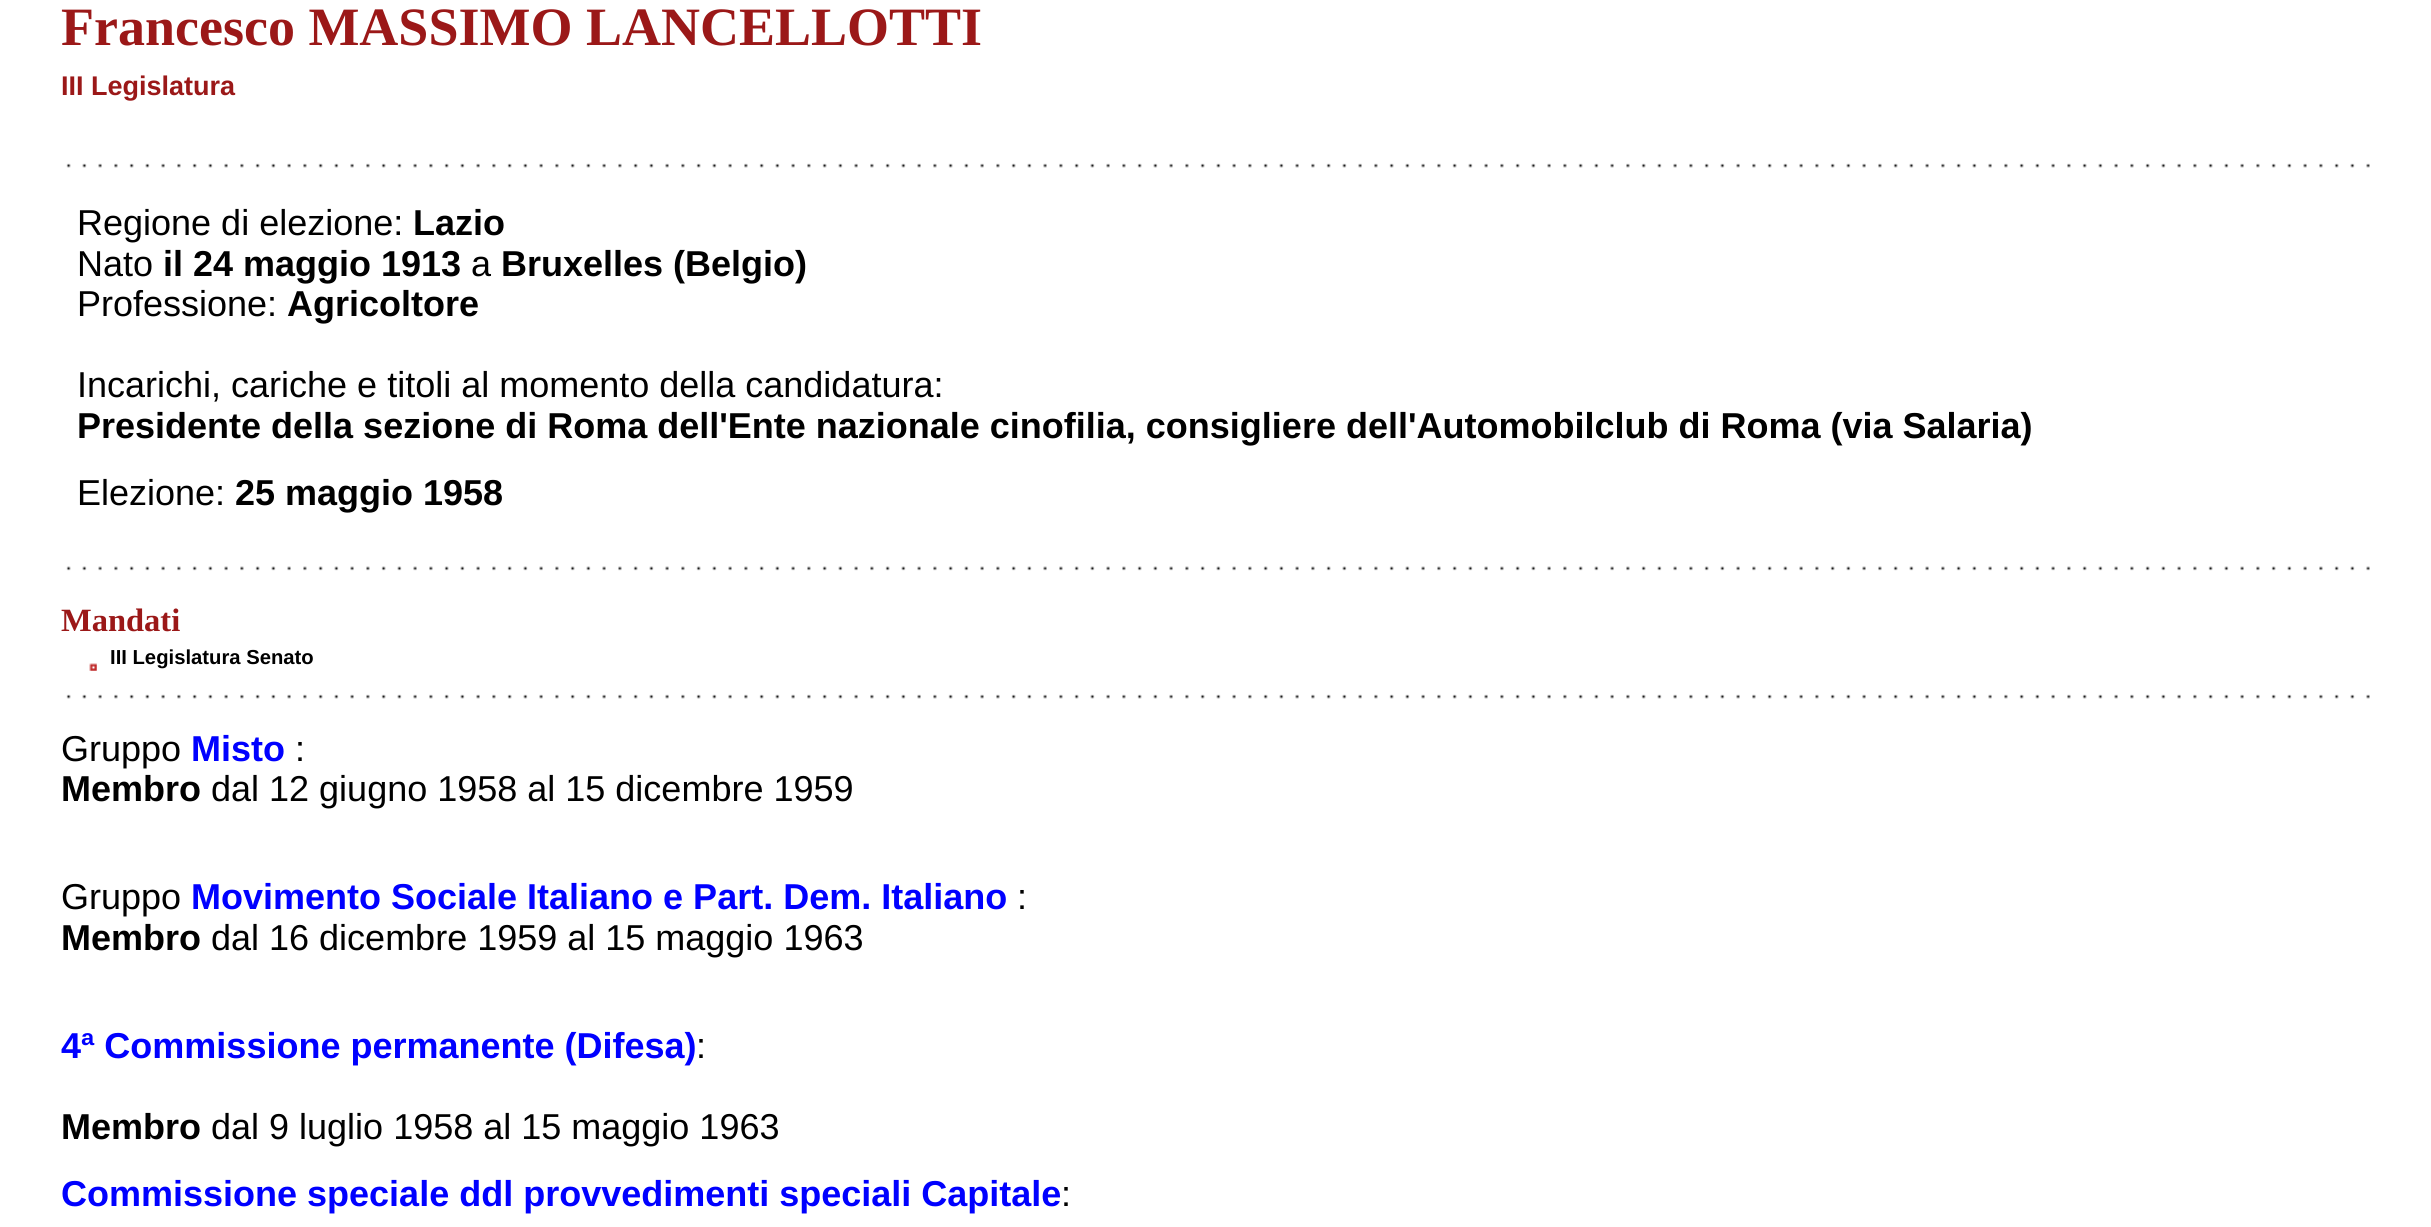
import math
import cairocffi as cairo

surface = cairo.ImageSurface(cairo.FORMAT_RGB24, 2431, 1227)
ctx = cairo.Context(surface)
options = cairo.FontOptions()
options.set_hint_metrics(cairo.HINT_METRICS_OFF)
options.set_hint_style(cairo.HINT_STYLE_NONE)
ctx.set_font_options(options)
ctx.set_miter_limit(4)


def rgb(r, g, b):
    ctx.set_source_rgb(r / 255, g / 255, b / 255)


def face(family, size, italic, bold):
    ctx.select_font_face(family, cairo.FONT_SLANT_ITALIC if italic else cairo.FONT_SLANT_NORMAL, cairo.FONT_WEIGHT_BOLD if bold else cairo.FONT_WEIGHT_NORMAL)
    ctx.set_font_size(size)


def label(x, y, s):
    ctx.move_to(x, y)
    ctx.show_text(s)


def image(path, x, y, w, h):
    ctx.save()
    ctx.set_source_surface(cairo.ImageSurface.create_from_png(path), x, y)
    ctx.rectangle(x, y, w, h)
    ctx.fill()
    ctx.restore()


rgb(255, 255, 255)
ctx.paint()
face('Liberation Serif', 54, 0, 1)
rgb(155, 24, 24)
label(61, 45, 'Francesco MASSIMO LANCELLOTTI')
face('Liberation Sans', 27, 0, 1)
label(61, 95, 'III Legislatura')
image('image0.png', 66, 163, 2304, 5)
face('Liberation Sans', 36, 0, 0)
rgb(0, 0, 0)
label(77, 235, 'Regione di elezione:')
face('Liberation Sans', 36, 0, 1)
label(413, 235, 'Lazio')
face('Liberation Sans', 36, 0, 0)
label(77, 276, 'Nato')
face('Liberation Sans', 36, 0, 1)
label(163, 276, 'il 24 maggio 1913')
face('Liberation Sans', 36, 0, 0)
label(471, 276, 'a')
face('Liberation Sans', 36, 0, 1)
label(501, 276, 'Bruxelles (Belgio)')
face('Liberation Sans', 36, 0, 0)
label(77, 316, 'Professione:')
face('Liberation Sans', 36, 0, 1)
label(287, 316, 'Agricoltore')
face('Liberation Sans', 36, 0, 0)
label(77, 397, 'Incarichi, cariche e titoli al momento della candidatura:')
face('Liberation Sans', 36, 0, 1)
label(77, 438, 'Presidente della sezione di Roma dell\'Ente nazionale cinofilia, consigliere dell\'Automobilclub di Roma (via Salaria)')
face('Liberation Sans', 36, 0, 0)
label(77, 505, 'Elezione:')
face('Liberation Sans', 36, 0, 1)
label(235, 505, '25 maggio 1958')
image('image1.png', 66, 566, 2304, 5)
face('Liberation Serif', 32.5, 0, 1)
rgb(155, 24, 24)
label(61, 631, 'Mandati')
image('image2.png', 89, 663, 8, 8)
face('Liberation Sans', 20.25, 0, 1)
rgb(0, 0, 0)
label(110, 664, 'III Legislatura Senato')
image('image0.png', 66, 694, 2304, 5)
face('Liberation Sans', 36, 0, 0)
label(61, 761, 'Gruppo')
face('Liberation Sans', 36, 0, 1)
rgb(0, 0, 255)
label(191, 761, 'Misto')
face('Liberation Sans', 36, 0, 0)
rgb(0, 0, 0)
label(295, 761, ':')
face('Liberation Sans', 36, 0, 1)
label(61, 801, 'Membro')
face('Liberation Sans', 36, 0, 0)
label(211, 801, 'dal 12 giugno 1958 al 15 dicembre 1959')
label(61, 909, 'Gruppo')
face('Liberation Sans', 36, 0, 1)
rgb(0, 0, 255)
label(191, 909, 'Movimento Sociale Italiano e Part. Dem. Italiano')
face('Liberation Sans', 36, 0, 0)
rgb(0, 0, 0)
label(1017, 909, ':')
face('Liberation Sans', 36, 0, 1)
label(61, 950, 'Membro')
face('Liberation Sans', 36, 0, 0)
label(211, 950, 'dal 16 dicembre 1959 al 15 maggio 1963')
face('Liberation Sans', 36, 0, 1)
rgb(0, 0, 255)
label(61, 1058, '4ª Commissione permanente (Difesa)')
face('Liberation Sans', 36, 0, 0)
rgb(0, 0, 0)
label(696, 1058, ':')
face('Liberation Sans', 36, 0, 1)
label(61, 1139, 'Membro')
face('Liberation Sans', 36, 0, 0)
label(211, 1139, 'dal 9 luglio 1958 al 15 maggio 1963')
face('Liberation Sans', 36, 0, 1)
rgb(0, 0, 255)
label(61, 1206, 'Commissione speciale ddl provvedimenti speciali Capitale')
face('Liberation Sans', 36, 0, 0)
rgb(0, 0, 0)
label(1061, 1206, ':')
surface.write_to_png('render.png')
